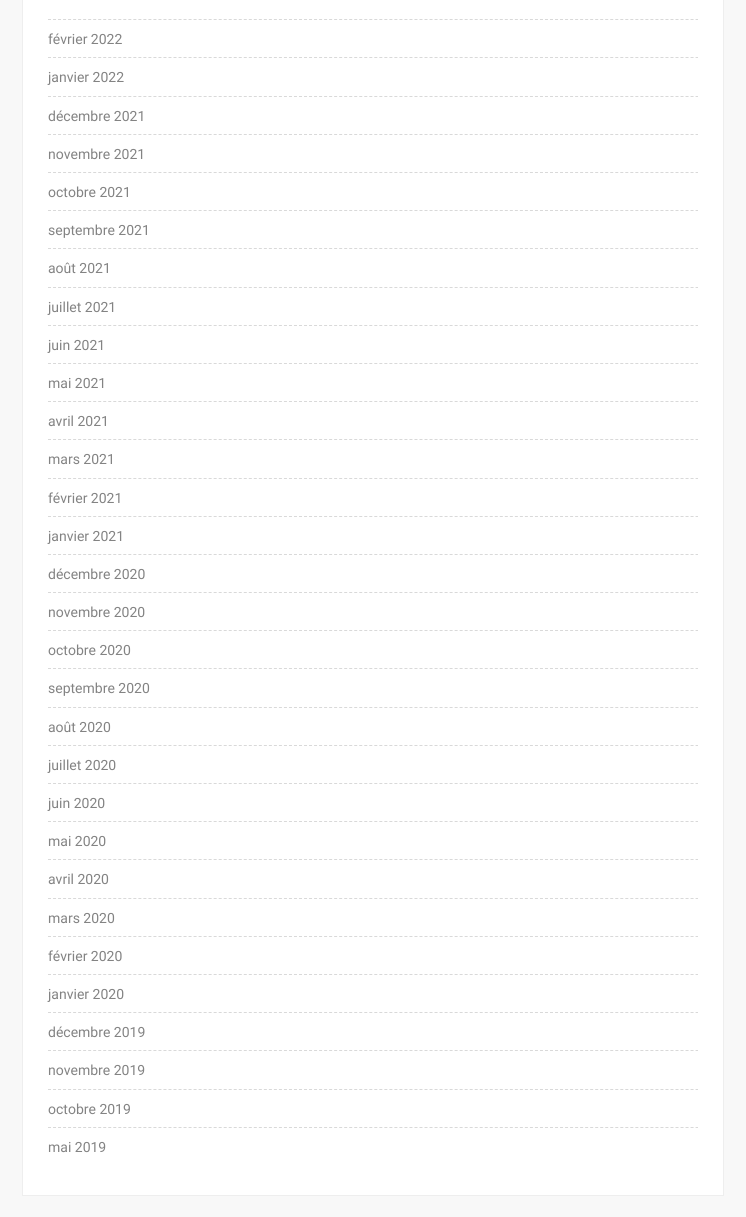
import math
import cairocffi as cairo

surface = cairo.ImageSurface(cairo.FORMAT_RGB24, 746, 1217)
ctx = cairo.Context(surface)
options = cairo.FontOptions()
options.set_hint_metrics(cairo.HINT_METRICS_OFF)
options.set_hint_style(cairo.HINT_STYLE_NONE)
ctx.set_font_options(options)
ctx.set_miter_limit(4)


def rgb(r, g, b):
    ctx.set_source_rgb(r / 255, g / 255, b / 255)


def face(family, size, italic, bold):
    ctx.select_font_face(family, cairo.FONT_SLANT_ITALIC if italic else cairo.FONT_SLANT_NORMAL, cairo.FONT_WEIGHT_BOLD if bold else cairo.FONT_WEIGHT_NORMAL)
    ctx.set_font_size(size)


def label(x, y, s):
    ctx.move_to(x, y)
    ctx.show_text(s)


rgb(248, 248, 248)
ctx.paint()
rgb(255, 255, 255)
ctx.rectangle(22.5, -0.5, 701, 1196)
ctx.fill_preserve()
rgb(238, 238, 238)
ctx.set_line_width(1)
ctx.stroke()
ctx.new_path()
ctx.move_to(48, 19.5)
ctx.line_to(698, 19.5)
rgb(217, 217, 217)
ctx.set_dash([3, 2.02])
ctx.stroke()
ctx.new_path()
ctx.move_to(48, 57.5)
ctx.line_to(698, 57.5)
ctx.stroke()
face('Roboto', 14, 0, 0)
rgb(131, 131, 131)
label(48, 44, 'février 2022')
ctx.new_path()
ctx.move_to(48, 96.5)
ctx.line_to(698, 96.5)
rgb(217, 217, 217)
ctx.stroke()
rgb(131, 131, 131)
label(48, 82, 'janvier 2022')
ctx.new_path()
ctx.move_to(48, 134.5)
ctx.line_to(698, 134.5)
rgb(217, 217, 217)
ctx.stroke()
rgb(131, 131, 131)
label(48, 121, 'décembre 2021')
ctx.new_path()
ctx.move_to(48, 172.5)
ctx.line_to(698, 172.5)
rgb(217, 217, 217)
ctx.stroke()
rgb(131, 131, 131)
label(48, 159, 'novembre 2021')
ctx.new_path()
ctx.move_to(48, 210.5)
ctx.line_to(698, 210.5)
rgb(217, 217, 217)
ctx.stroke()
rgb(131, 131, 131)
label(48, 197, 'octobre 2021')
ctx.new_path()
ctx.move_to(48, 248.5)
ctx.line_to(698, 248.5)
rgb(217, 217, 217)
ctx.stroke()
rgb(131, 131, 131)
label(48, 235, 'septembre 2021')
ctx.new_path()
ctx.move_to(48, 287.5)
ctx.line_to(698, 287.5)
rgb(217, 217, 217)
ctx.stroke()
rgb(131, 131, 131)
label(48, 273, 'août 2021')
ctx.new_path()
ctx.move_to(48, 325.5)
ctx.line_to(698, 325.5)
rgb(217, 217, 217)
ctx.stroke()
rgb(131, 131, 131)
label(48, 312, 'juillet 2021')
ctx.new_path()
ctx.move_to(48, 363.5)
ctx.line_to(698, 363.5)
rgb(217, 217, 217)
ctx.stroke()
rgb(131, 131, 131)
label(48, 350, 'juin 2021')
ctx.new_path()
ctx.move_to(48, 401.5)
ctx.line_to(698, 401.5)
rgb(217, 217, 217)
ctx.stroke()
rgb(131, 131, 131)
label(48, 388, 'mai 2021')
ctx.new_path()
ctx.move_to(48, 439.5)
ctx.line_to(698, 439.5)
rgb(217, 217, 217)
ctx.stroke()
rgb(131, 131, 131)
label(48, 426, 'avril 2021')
ctx.new_path()
ctx.move_to(48, 478.5)
ctx.line_to(698, 478.5)
rgb(217, 217, 217)
ctx.stroke()
rgb(131, 131, 131)
label(48, 464, 'mars 2021')
ctx.new_path()
ctx.move_to(48, 516.5)
ctx.line_to(698, 516.5)
rgb(217, 217, 217)
ctx.stroke()
rgb(131, 131, 131)
label(48, 503, 'février 2021')
ctx.new_path()
ctx.move_to(48, 554.5)
ctx.line_to(698, 554.5)
rgb(217, 217, 217)
ctx.stroke()
rgb(131, 131, 131)
label(48, 541, 'janvier 2021')
ctx.new_path()
ctx.move_to(48, 592.5)
ctx.line_to(698, 592.5)
rgb(217, 217, 217)
ctx.stroke()
rgb(131, 131, 131)
label(48, 579, 'décembre 2020')
ctx.new_path()
ctx.move_to(48, 630.5)
ctx.line_to(698, 630.5)
rgb(217, 217, 217)
ctx.stroke()
rgb(131, 131, 131)
label(48, 617, 'novembre 2020')
ctx.new_path()
ctx.move_to(48, 668.5)
ctx.line_to(698, 668.5)
rgb(217, 217, 217)
ctx.stroke()
rgb(131, 131, 131)
label(48, 655, 'octobre 2020')
ctx.new_path()
ctx.move_to(48, 707.5)
ctx.line_to(698, 707.5)
rgb(217, 217, 217)
ctx.stroke()
rgb(131, 131, 131)
label(48, 693, 'septembre 2020')
ctx.new_path()
ctx.move_to(48, 745.5)
ctx.line_to(698, 745.5)
rgb(217, 217, 217)
ctx.stroke()
rgb(131, 131, 131)
label(48, 732, 'août 2020')
ctx.new_path()
ctx.move_to(48, 783.5)
ctx.line_to(698, 783.5)
rgb(217, 217, 217)
ctx.stroke()
rgb(131, 131, 131)
label(48, 770, 'juillet 2020')
ctx.new_path()
ctx.move_to(48, 821.5)
ctx.line_to(698, 821.5)
rgb(217, 217, 217)
ctx.stroke()
rgb(131, 131, 131)
label(48, 808, 'juin 2020')
ctx.new_path()
ctx.move_to(48, 859.5)
ctx.line_to(698, 859.5)
rgb(217, 217, 217)
ctx.stroke()
rgb(131, 131, 131)
label(48, 846, 'mai 2020')
ctx.new_path()
ctx.move_to(48, 898.5)
ctx.line_to(698, 898.5)
rgb(217, 217, 217)
ctx.stroke()
rgb(131, 131, 131)
label(48, 884, 'avril 2020')
ctx.new_path()
ctx.move_to(48, 936.5)
ctx.line_to(698, 936.5)
rgb(217, 217, 217)
ctx.stroke()
rgb(131, 131, 131)
label(48, 923, 'mars 2020')
ctx.new_path()
ctx.move_to(48, 974.5)
ctx.line_to(698, 974.5)
rgb(217, 217, 217)
ctx.stroke()
rgb(131, 131, 131)
label(48, 961, 'février 2020')
ctx.new_path()
ctx.move_to(48, 1012.5)
ctx.line_to(698, 1012.5)
rgb(217, 217, 217)
ctx.stroke()
rgb(131, 131, 131)
label(48, 999, 'janvier 2020')
ctx.new_path()
ctx.move_to(48, 1050.5)
ctx.line_to(698, 1050.5)
rgb(217, 217, 217)
ctx.stroke()
rgb(131, 131, 131)
label(48, 1037, 'décembre 2019')
ctx.new_path()
ctx.move_to(48, 1089.5)
ctx.line_to(698, 1089.5)
rgb(217, 217, 217)
ctx.stroke()
rgb(131, 131, 131)
label(48, 1075, 'novembre 2019')
ctx.new_path()
ctx.move_to(48, 1127.5)
ctx.line_to(698, 1127.5)
rgb(217, 217, 217)
ctx.stroke()
rgb(131, 131, 131)
label(48, 1114, 'octobre 2019')
label(48, 1152, 'mai 2019')
surface.write_to_png('render.png')
